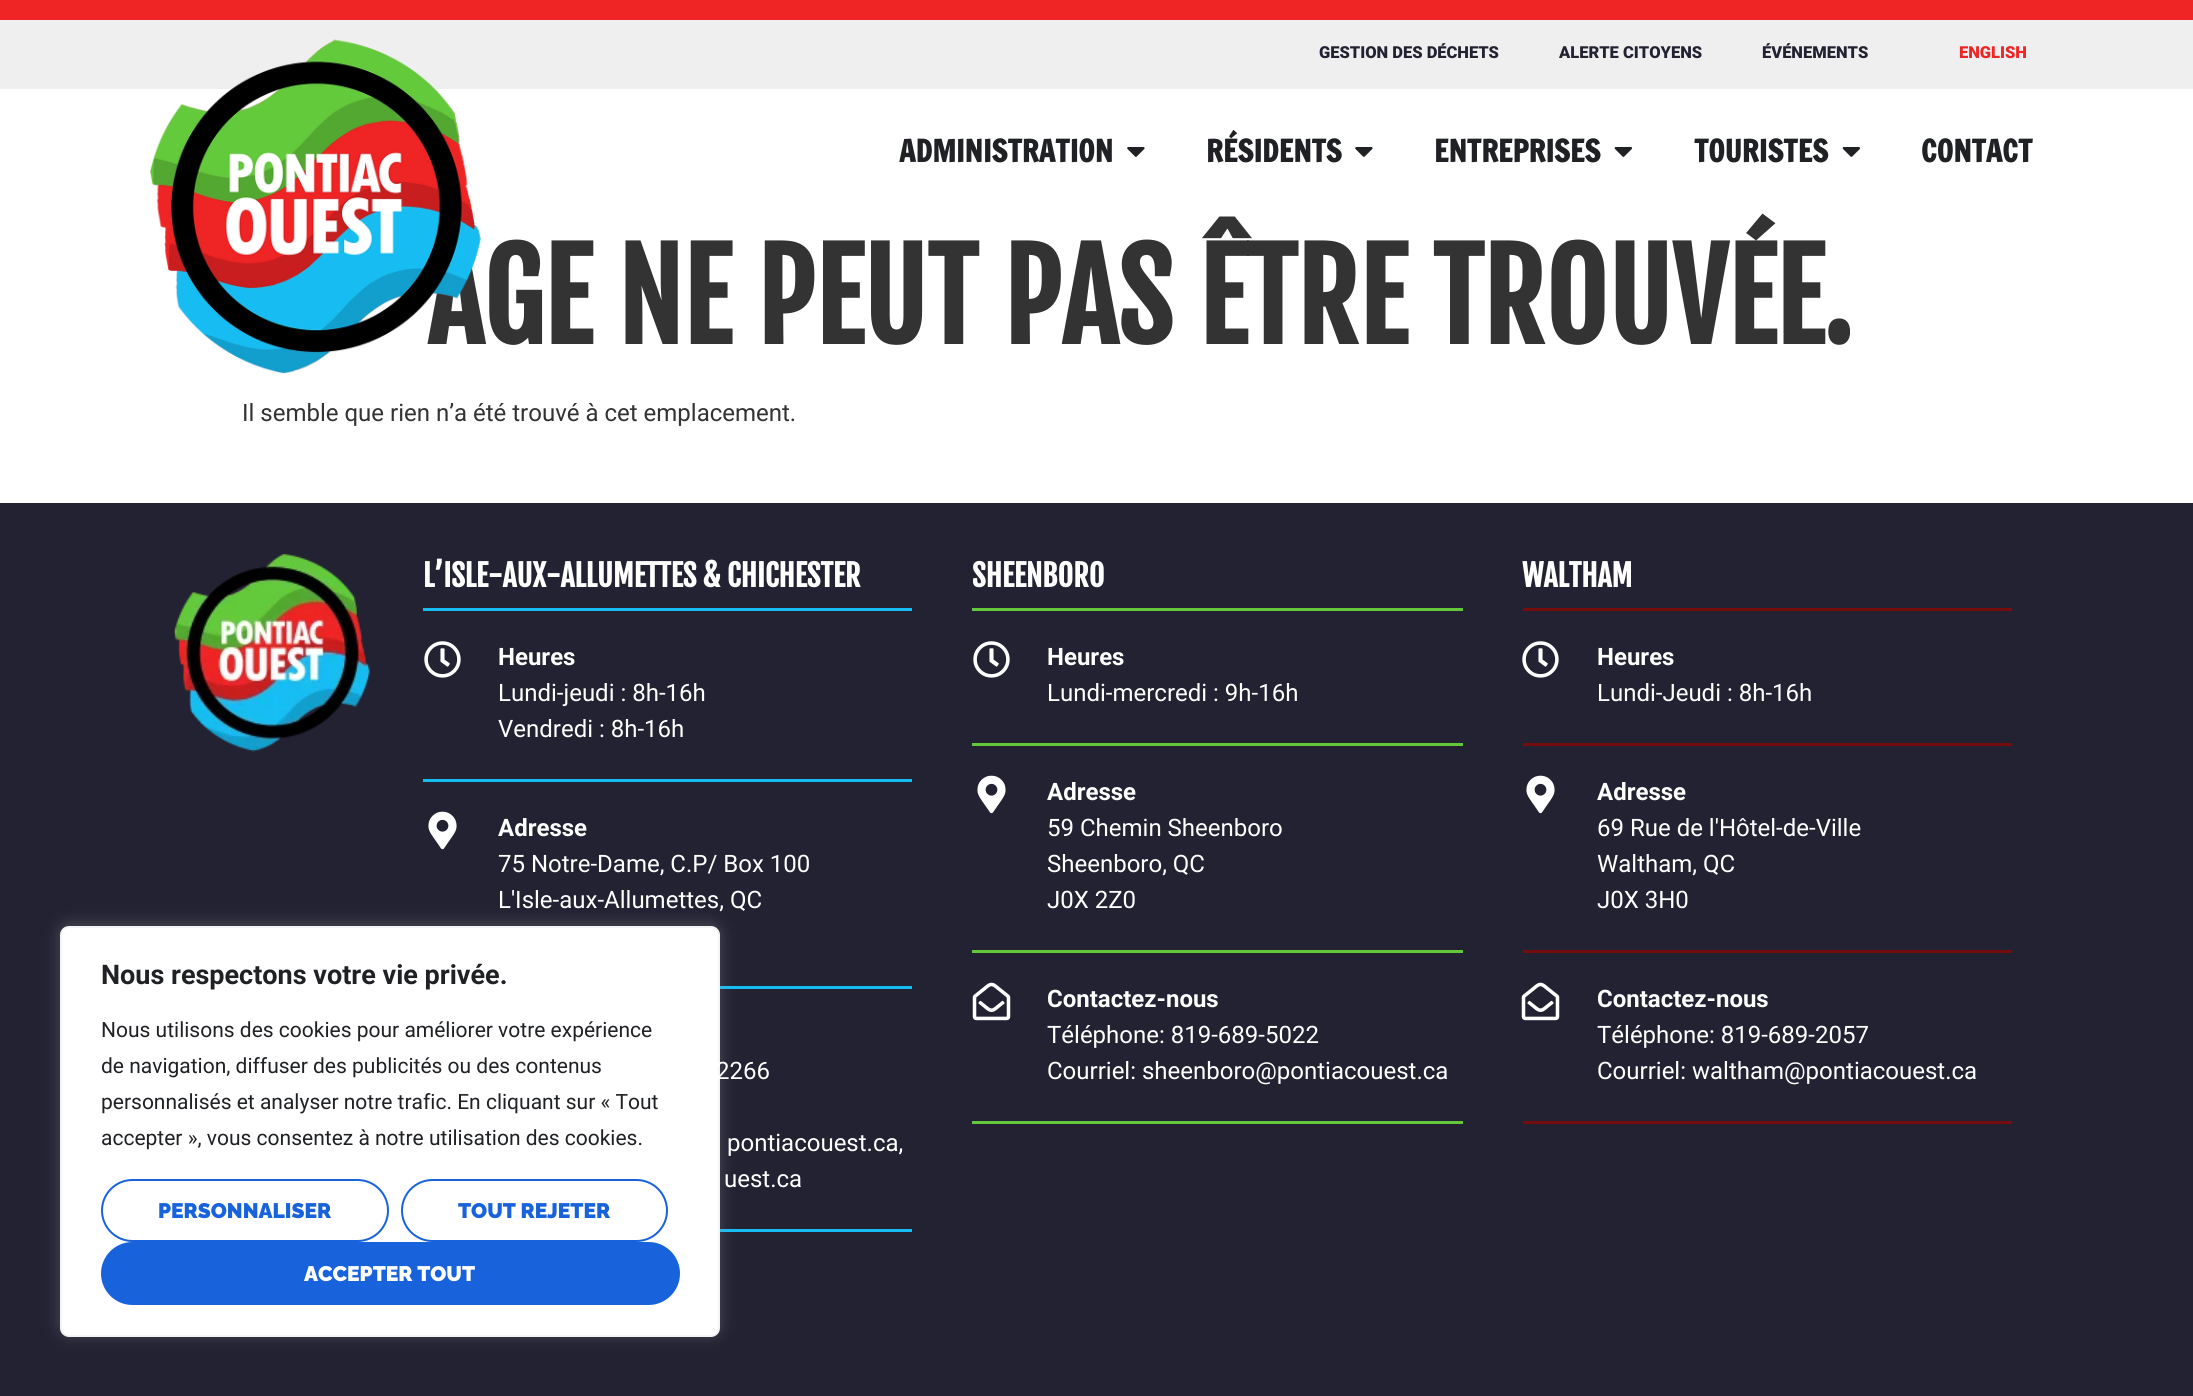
import math
import cairocffi as cairo

surface = cairo.ImageSurface(cairo.FORMAT_RGB24, 2193, 1396)
ctx = cairo.Context(surface)
options = cairo.FontOptions()
options.set_hint_metrics(cairo.HINT_METRICS_OFF)
options.set_hint_style(cairo.HINT_STYLE_NONE)
ctx.set_font_options(options)
ctx.set_miter_limit(4)


def rgb(r, g, b):
    ctx.set_source_rgb(r / 255, g / 255, b / 255)


def face(family, size, italic, bold):
    ctx.select_font_face(family, cairo.FONT_SLANT_ITALIC if italic else cairo.FONT_SLANT_NORMAL, cairo.FONT_WEIGHT_BOLD if bold else cairo.FONT_WEIGHT_NORMAL)
    ctx.set_font_size(size)


def label(x, y, s):
    ctx.move_to(x, y)
    ctx.show_text(s)


def rect(x, y, w, h):
    ctx.rectangle(x, y, w, h)
    ctx.fill()


def rrect(x, y, w, h, r):
    ctx.new_sub_path()
    for i, (u, v) in enumerate([(x + w - r, y + h - r), (x + r, y + h - r), (x + r, y + r), (x + w - r, y + r)]):
        ctx.arc(u, v, r, i * math.pi / 2, (i + 1) * math.pi / 2)
    ctx.close_path()


def soft_shadow(x, y, w, h, r, blur, alpha):
    ctx.push_group_with_content(cairo.CONTENT_ALPHA)
    ctx.set_operator(cairo.OPERATOR_SOURCE)
    for i in range(15, -16, -2):
        e = blur * i / 6
        if min(w, h) + 2 * e > 0:
            ctx.set_source_rgba(0, 0, 0, alpha * math.erfc((i - 1) / 8.5) / 2)
            rrect(x - e, y - e, w + 2 * e, h + 2 * e, max(0, min(r + e + blur * .6, min(w, h) / 2 + e)))
            ctx.fill()
    ctx.mask(ctx.pop_group())


def image(path, x, y, w, h):
    ctx.save()
    ctx.set_source_surface(cairo.ImageSurface.create_from_png(path), x, y)
    ctx.rectangle(x, y, w, h)
    ctx.fill()
    ctx.restore()


rgb(255, 255, 255)
ctx.paint()
rgb(239, 36, 36)
rect(0, 0, 2193, 20)
rgb(239, 239, 239)
rect(0, 20, 2193, 69)
face('Roboto Black', 16.5, 0, 0)
rgb(34, 34, 51)
label(1319, 58, 'GESTION DES DÉCHETS')
label(1559, 58, 'ALERTE CITOYENS')
label(1762, 58, 'ÉVÉNEMENTS')
rgb(239, 36, 36)
label(1959, 58, 'ENGLISH')
face('Fjalla One', 120, 0, 1)
rgb(51, 51, 51)
label(427, 344, 'AGE NE PEUT PAS ÊTRE TROUVÉE.')
image('image0.png', 149, 39, 333, 335)
face('Francois One', 30, 0, 1)
rgb(31, 33, 36)
label(899, 162, 'ADMINISTRATION')
image('image1.png', 1127, 147, 18, 10)
label(1206, 162, 'RÉSIDENTS')
image('image1.png', 1355, 147, 18, 10)
label(1434, 162, 'ENTREPRISES')
image('image2.png', 1614, 147, 19, 10)
label(1694, 162, 'TOURISTES')
image('image2.png', 1842, 147, 19, 10)
label(1921, 162, 'CONTACT')
face('Roboto', 24, 0, 0)
rgb(51, 51, 51)
label(242, 421, 'Il semble que rien n’a été trouvé à cet emplacement.')
rgb(34, 34, 51)
rect(0, 503, 2193, 893)
rgb(22, 189, 243)
rect(720, 986, 192, 3)
rect(720, 1229, 192, 3)
rgb(172, 171, 171)
soft_shadow(60, 924, 660, 411, 9, 7.5, 0.3)
rgb(255, 255, 255)
rrect(61, 927, 658, 409, 8)
ctx.fill_preserve()
rgb(244, 244, 244)
ctx.stroke()
face('Roboto', 27, 0, 1)
rgb(31, 33, 36)
label(101, 984, 'Nous respectons votre vie privée.')
face('Roboto', 21, 0, 0)
label(101, 1037, 'Nous utilisons des cookies pour améliorer votre expérience')
label(101, 1073, 'de navigation, diffuser des publicités ou des contenus')
label(101, 1109, 'personnalisés et analyser notre trafic. En cliquant sur « Tout')
label(101, 1145, 'accepter », vous consentez à notre utilisation des cookies.')
rrect(102, 1180, 286, 61, 30.5)
rgb(24, 99, 220)
ctx.stroke()
face('Raleway Black', 21, 0, 0)
label(158, 1218, 'PERSONNALISER')
rrect(402, 1180, 265, 61, 30.5)
ctx.stroke()
label(458, 1218, 'TOUT REJETER')
rrect(102, 1243, 577, 61, 30.5)
ctx.fill_preserve()
ctx.stroke()
rgb(255, 255, 255)
label(304, 1281, 'ACCEPTER TOUT')
image('image3.png', 173, 553, 197, 199)
face('Fjalla One', 30, 0, 1)
label(423, 587, 'L’ISLE-AUX-ALLUMETTES & CHICHESTER')
rgb(22, 189, 243)
rect(423, 608, 489, 3)
rect(423, 779, 489, 3)
image('image4.png', 424, 641, 37, 37)
face('Roboto', 24, 0, 1)
rgb(255, 255, 255)
label(498, 665, 'Heures')
face('Roboto', 24, 0, 0)
label(498, 701, 'Lundi-jeudi : 8h-16h')
label(498, 737, 'Vendredi : 8h-16h')
image('image5.png', 428, 811, 29, 39)
face('Roboto', 24, 0, 1)
label(498, 836, 'Adresse')
face('Roboto', 24, 0, 0)
label(498, 872, '75 Notre-Dame, C.P/ Box 100')
label(498, 908, 'L\'Isle-aux-Allumettes, QC')
label(716, 1079, '2266')
label(727, 1151, 'pontiacouest.ca,')
label(724, 1187, 'uest.ca')
face('Fjalla One', 30, 0, 1)
label(972, 587, 'SHEENBORO')
rgb(99, 201, 59)
rect(972, 608, 491, 3)
rect(972, 743, 491, 3)
image('image4.png', 973, 641, 37, 37)
face('Roboto', 24, 0, 1)
rgb(255, 255, 255)
label(1047, 665, 'Heures')
face('Roboto', 24, 0, 0)
label(1047, 701, 'Lundi-mercredi : 9h-16h')
rgb(99, 201, 59)
rect(972, 950, 491, 3)
image('image5.png', 977, 775, 29, 39)
face('Roboto', 24, 0, 1)
rgb(255, 255, 255)
label(1047, 800, 'Adresse')
face('Roboto', 24, 0, 0)
label(1047, 836, '59 Chemin Sheenboro')
label(1047, 872, 'Sheenboro, QC')
label(1047, 908, 'J0X 2Z0')
rgb(99, 201, 59)
rect(972, 1121, 491, 3)
image('image6.png', 972, 982, 39, 39)
face('Roboto', 24, 0, 1)
rgb(255, 255, 255)
label(1047, 1007, 'Contactez-nous')
face('Roboto', 24, 0, 0)
label(1047, 1043, 'Téléphone: 819-689-5022')
label(1047, 1079, 'Courriel: sheenboro@pontiacouest.ca')
face('Fjalla One', 30, 0, 1)
label(1522, 587, 'WALTHAM')
rgb(117, 13, 12)
rect(1523, 608, 489, 3)
rect(1523, 743, 489, 3)
image('image4.png', 1522, 641, 37, 37)
face('Roboto', 24, 0, 1)
rgb(255, 255, 255)
label(1597, 665, 'Heures')
face('Roboto', 24, 0, 0)
label(1597, 701, 'Lundi-Jeudi : 8h-16h')
rgb(117, 13, 12)
rect(1523, 950, 489, 3)
image('image5.png', 1526, 775, 29, 39)
face('Roboto', 24, 0, 1)
rgb(255, 255, 255)
label(1597, 800, 'Adresse')
face('Roboto', 24, 0, 0)
label(1597, 836, '69 Rue de l\'Hôtel-de-Ville')
label(1597, 872, 'Waltham, QC')
label(1597, 908, 'J0X 3H0')
rgb(117, 13, 12)
rect(1523, 1121, 489, 3)
image('image6.png', 1521, 982, 39, 39)
face('Roboto', 24, 0, 1)
rgb(255, 255, 255)
label(1597, 1007, 'Contactez-nous')
face('Roboto', 24, 0, 0)
label(1597, 1043, 'Téléphone: 819-689-2057')
label(1597, 1079, 'Courriel: waltham@pontiacouest.ca')
surface.write_to_png('render.png')
